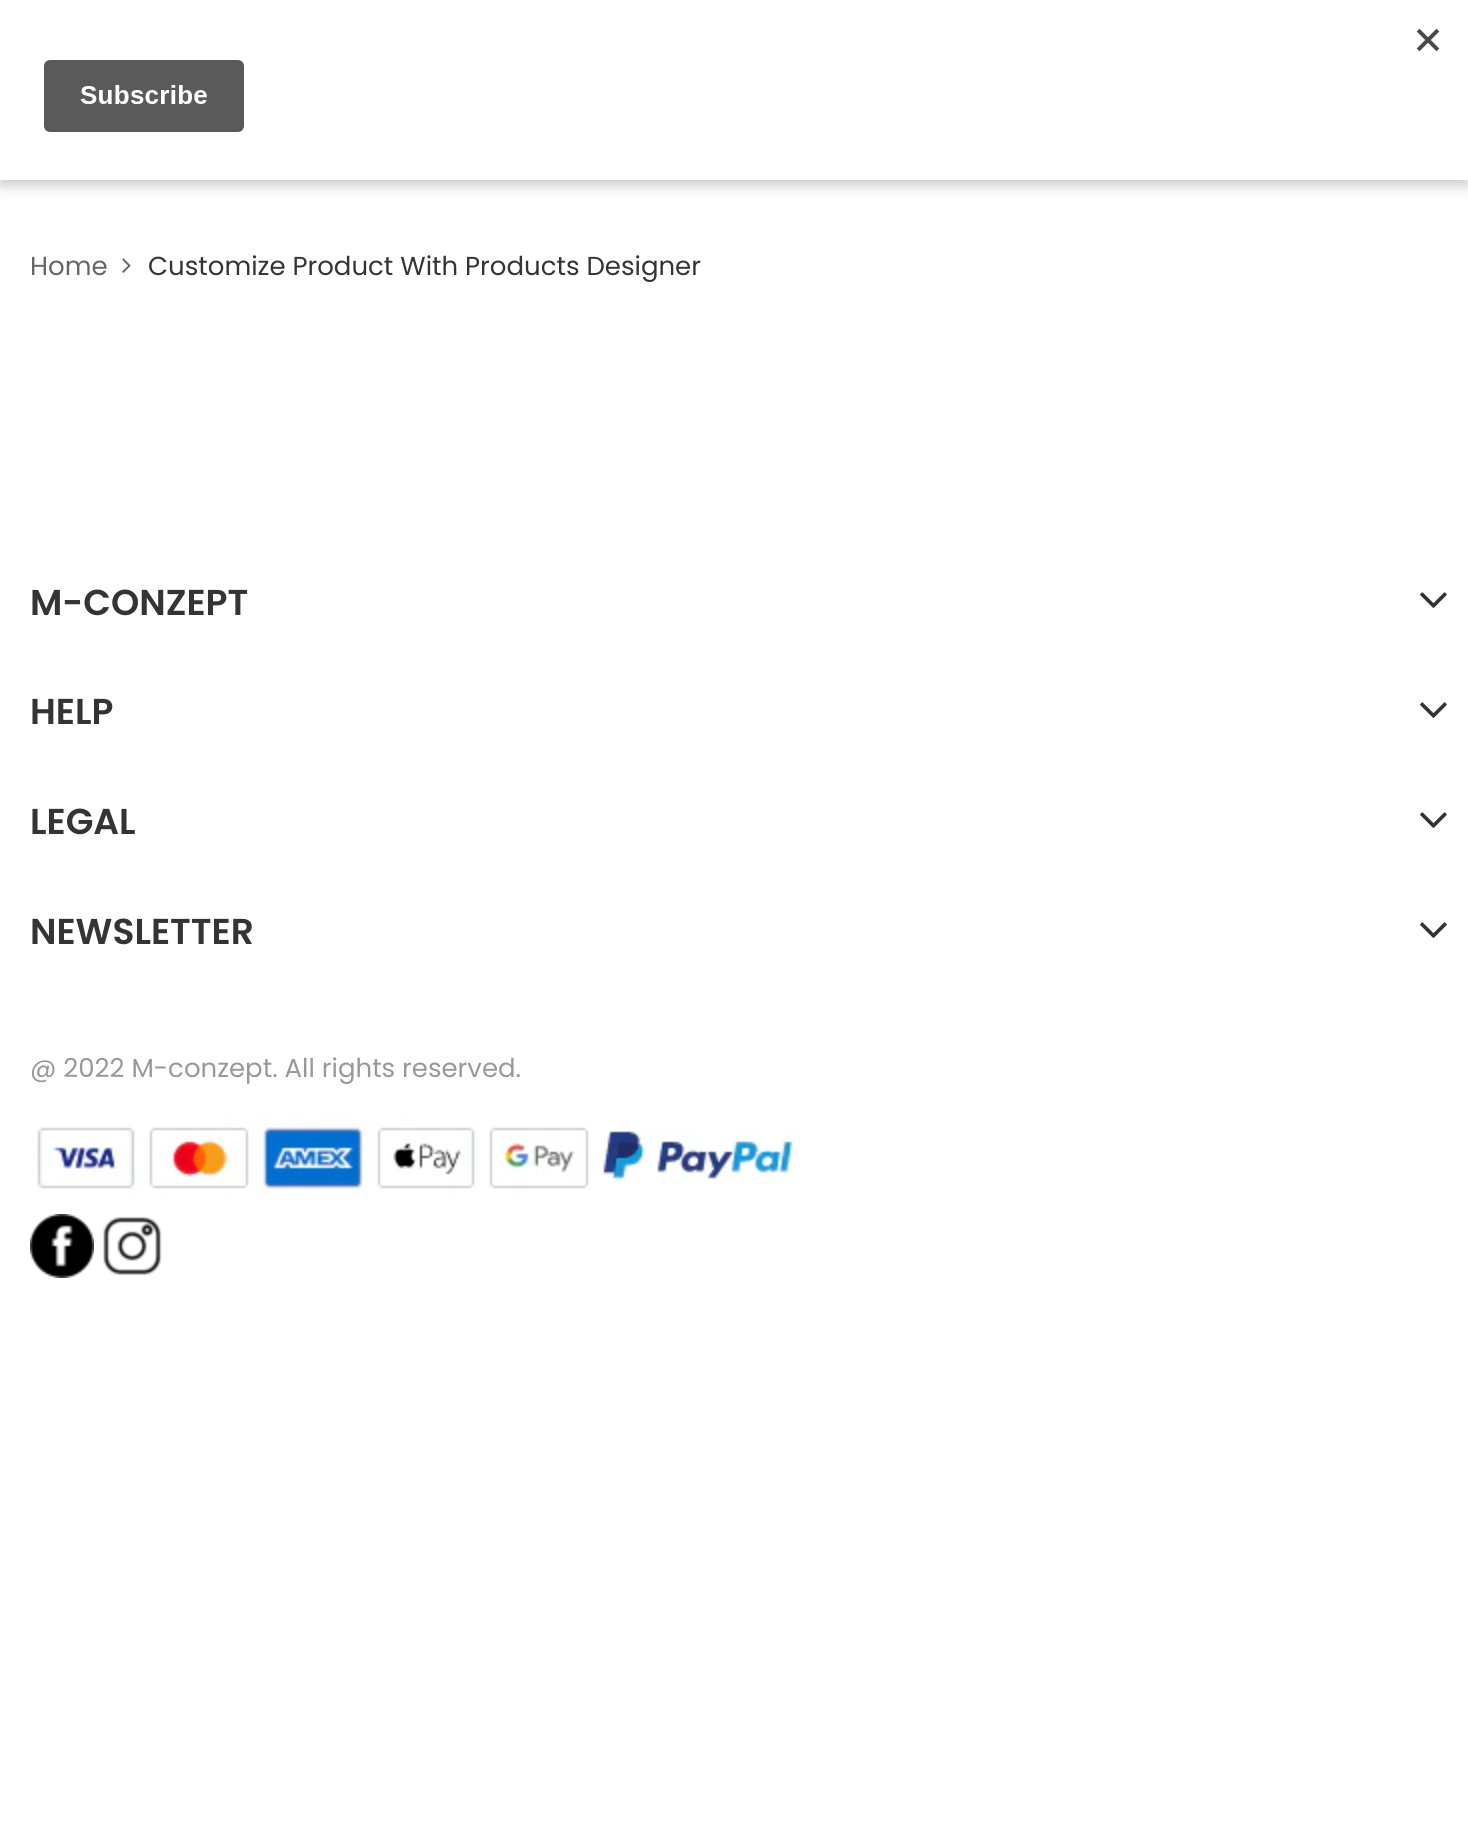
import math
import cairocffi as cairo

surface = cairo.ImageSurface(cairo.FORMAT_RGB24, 1468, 1836)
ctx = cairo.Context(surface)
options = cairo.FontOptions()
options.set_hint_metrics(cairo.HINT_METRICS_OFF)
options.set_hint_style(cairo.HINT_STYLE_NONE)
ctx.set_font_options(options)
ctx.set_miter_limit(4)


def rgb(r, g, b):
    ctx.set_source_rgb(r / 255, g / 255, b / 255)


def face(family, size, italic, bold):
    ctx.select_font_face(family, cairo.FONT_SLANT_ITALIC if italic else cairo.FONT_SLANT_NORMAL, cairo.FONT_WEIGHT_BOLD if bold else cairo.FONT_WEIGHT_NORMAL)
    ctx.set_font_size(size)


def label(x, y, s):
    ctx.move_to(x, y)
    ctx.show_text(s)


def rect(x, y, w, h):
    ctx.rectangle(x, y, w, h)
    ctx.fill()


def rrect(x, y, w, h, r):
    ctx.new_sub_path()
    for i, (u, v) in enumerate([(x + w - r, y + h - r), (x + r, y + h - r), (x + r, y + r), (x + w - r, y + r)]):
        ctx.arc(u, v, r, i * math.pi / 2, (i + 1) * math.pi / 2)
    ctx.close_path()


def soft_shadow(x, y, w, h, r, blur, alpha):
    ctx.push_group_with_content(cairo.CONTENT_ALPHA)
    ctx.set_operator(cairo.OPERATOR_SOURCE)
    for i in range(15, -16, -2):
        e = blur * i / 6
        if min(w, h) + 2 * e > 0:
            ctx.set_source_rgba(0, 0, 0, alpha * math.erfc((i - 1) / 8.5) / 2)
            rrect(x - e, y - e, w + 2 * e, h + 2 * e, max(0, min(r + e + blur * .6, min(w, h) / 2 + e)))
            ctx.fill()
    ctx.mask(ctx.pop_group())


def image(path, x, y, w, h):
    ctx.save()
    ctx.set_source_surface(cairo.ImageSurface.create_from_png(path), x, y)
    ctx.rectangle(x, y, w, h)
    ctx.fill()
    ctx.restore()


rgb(255, 255, 255)
ctx.paint()
rgb(0, 0, 0)
soft_shadow(0, 6, 1468, 180, 0, 6, 0.2)
rgb(255, 255, 255)
rect(0, 0, 1468, 180)
image('image0.png', 44, 28, 1396, 104)
face('Poppins', 26, 0, 0)
rgb(102, 102, 102)
label(30, 275, 'Home')
image('image1.png', 122, 258, 9, 15)
rgb(52, 52, 52)
label(148, 275, 'Customize Product With Products Designer')
face('Poppins SemiBold', 36, 0, 0)
label(30, 615, 'M-CONZEPT')
image('image2.png', 1420, 592, 27, 16)
label(30, 724, 'HELP')
image('image2.png', 1420, 702, 27, 16)
label(30, 834, 'LEGAL')
image('image2.png', 1420, 812, 27, 16)
label(30, 944, 'NEWSLETTER')
image('image2.png', 1420, 922, 27, 16)
face('Poppins', 26, 0, 0)
rgb(153, 153, 153)
label(30, 1077, '@ 2022 M-conzept. All rights reserved.')
image('image3.png', 37, 1116, 761, 80)
image('image4.png', 30, 1214, 64, 64)
image('image5.png', 103, 1216, 59, 60)
surface.write_to_png('render.png')
